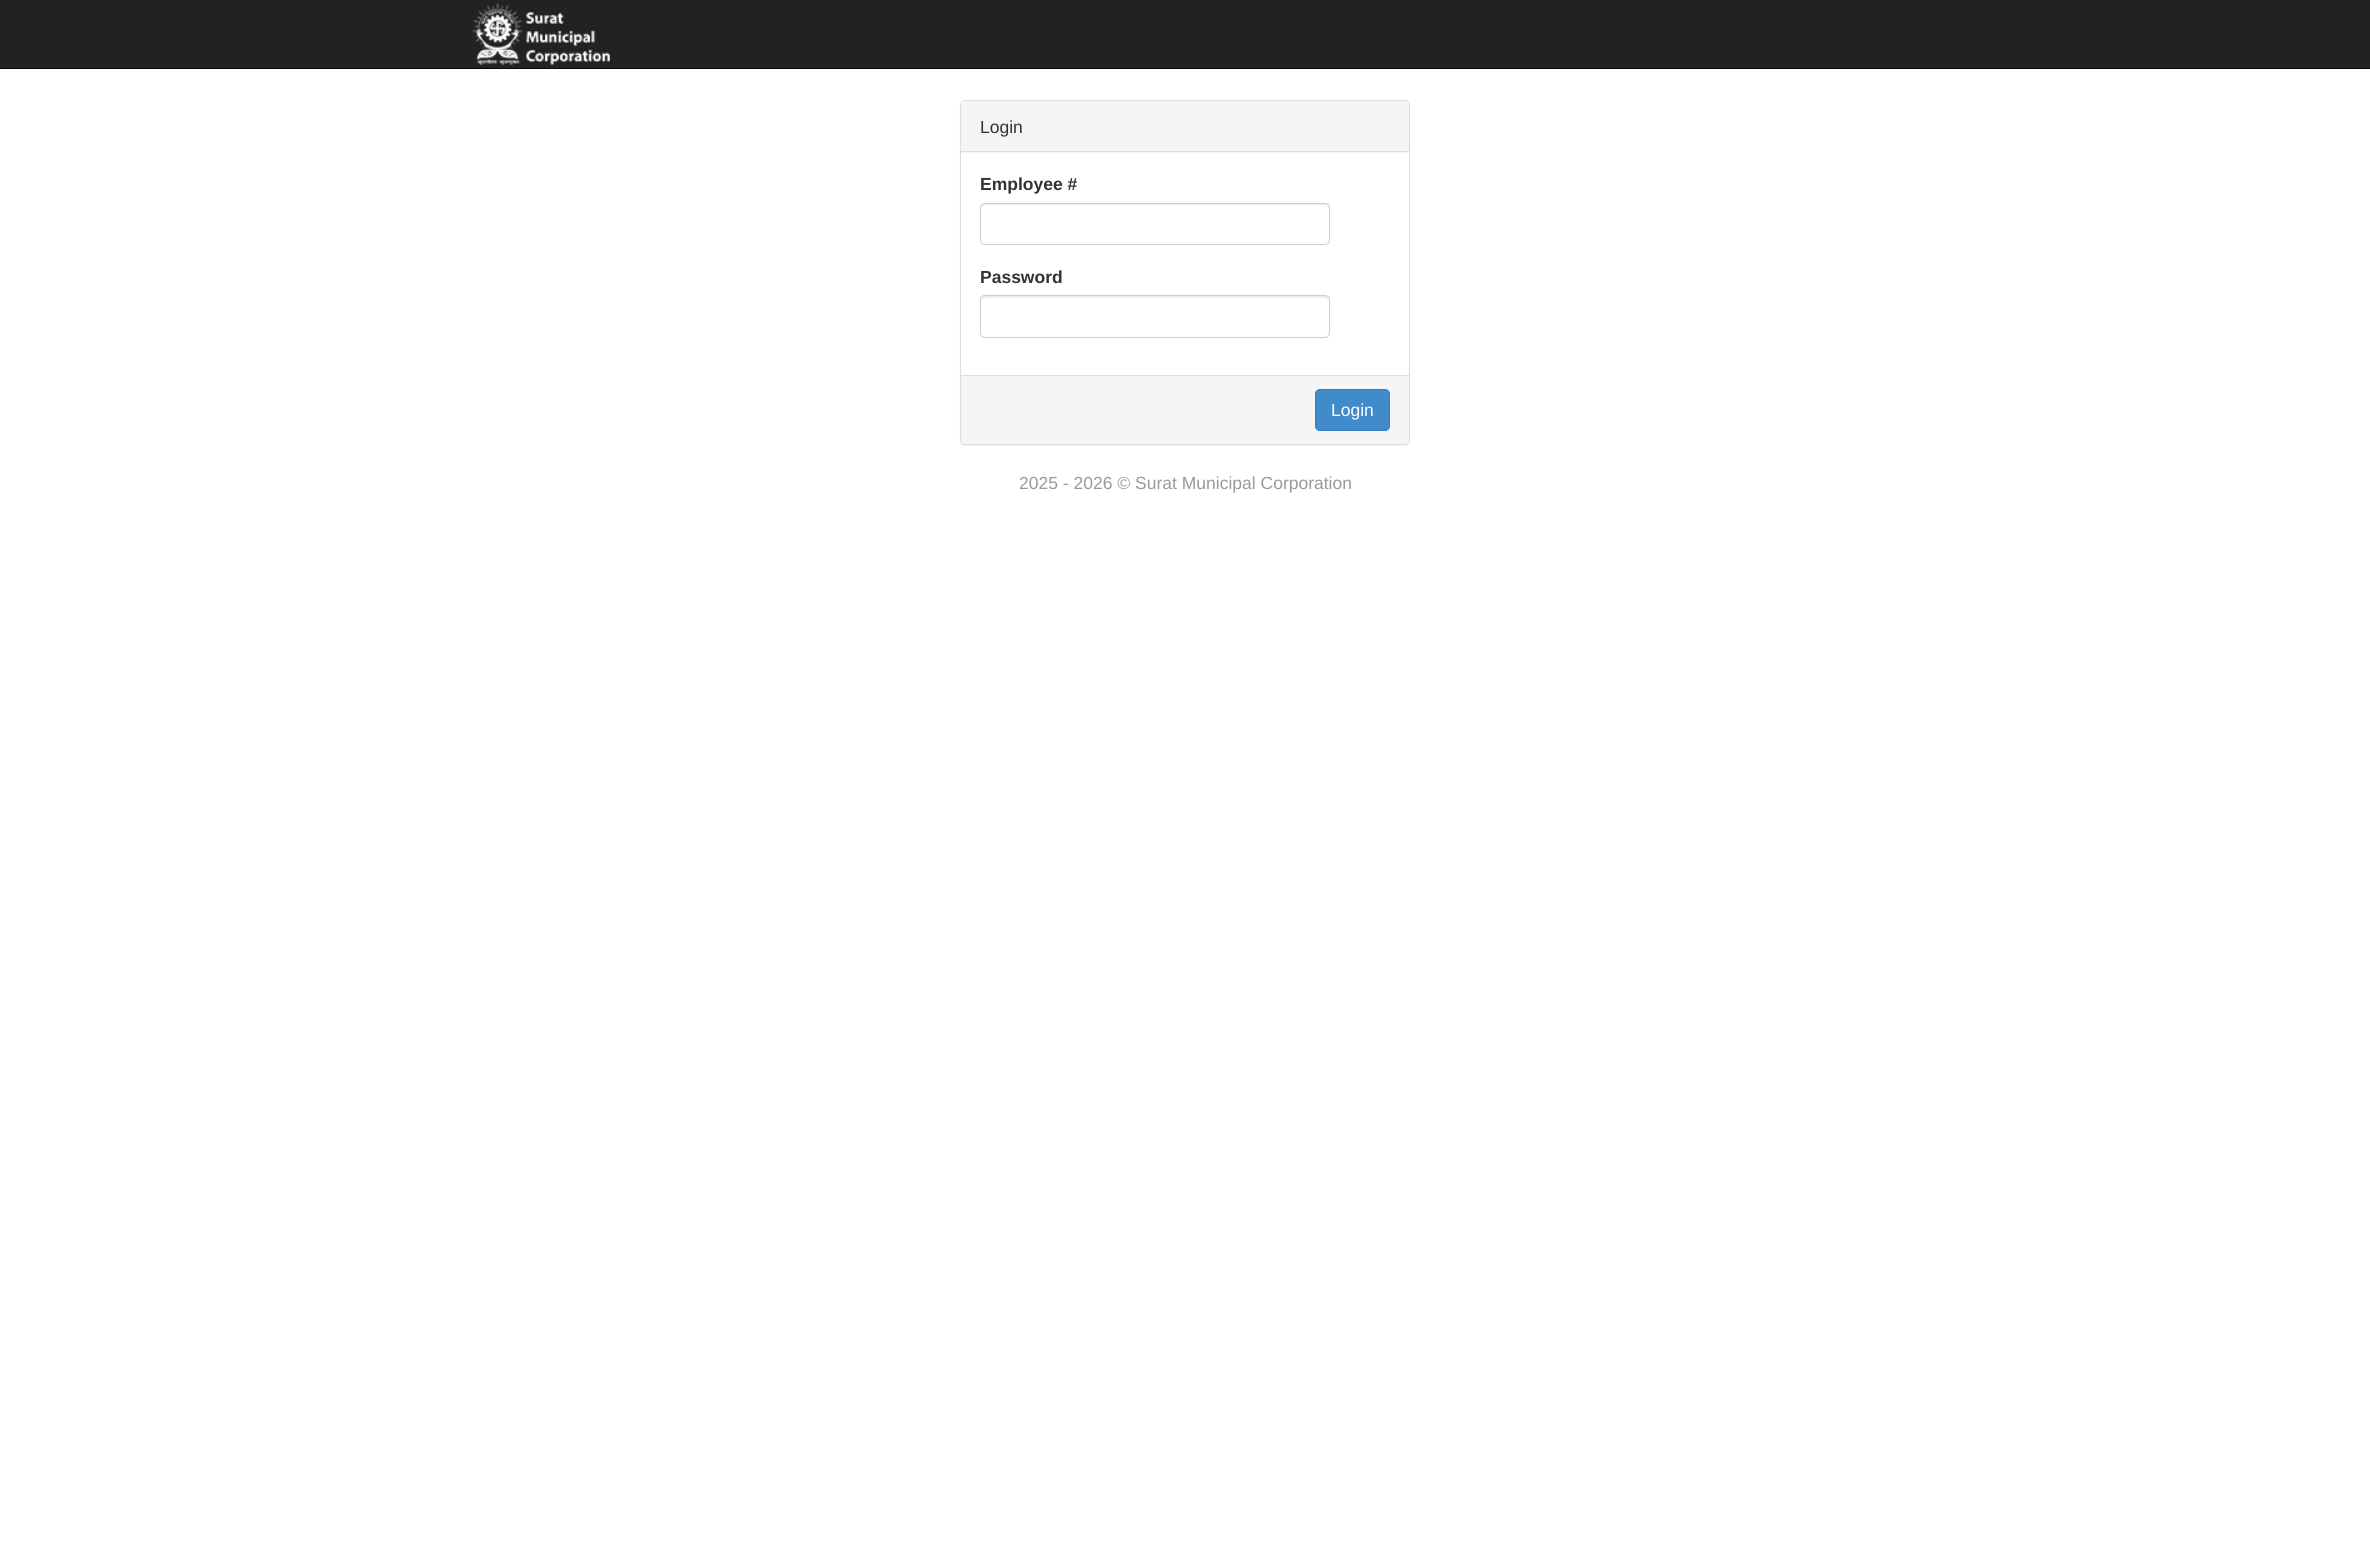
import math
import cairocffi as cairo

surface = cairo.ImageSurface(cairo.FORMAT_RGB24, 2370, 1557)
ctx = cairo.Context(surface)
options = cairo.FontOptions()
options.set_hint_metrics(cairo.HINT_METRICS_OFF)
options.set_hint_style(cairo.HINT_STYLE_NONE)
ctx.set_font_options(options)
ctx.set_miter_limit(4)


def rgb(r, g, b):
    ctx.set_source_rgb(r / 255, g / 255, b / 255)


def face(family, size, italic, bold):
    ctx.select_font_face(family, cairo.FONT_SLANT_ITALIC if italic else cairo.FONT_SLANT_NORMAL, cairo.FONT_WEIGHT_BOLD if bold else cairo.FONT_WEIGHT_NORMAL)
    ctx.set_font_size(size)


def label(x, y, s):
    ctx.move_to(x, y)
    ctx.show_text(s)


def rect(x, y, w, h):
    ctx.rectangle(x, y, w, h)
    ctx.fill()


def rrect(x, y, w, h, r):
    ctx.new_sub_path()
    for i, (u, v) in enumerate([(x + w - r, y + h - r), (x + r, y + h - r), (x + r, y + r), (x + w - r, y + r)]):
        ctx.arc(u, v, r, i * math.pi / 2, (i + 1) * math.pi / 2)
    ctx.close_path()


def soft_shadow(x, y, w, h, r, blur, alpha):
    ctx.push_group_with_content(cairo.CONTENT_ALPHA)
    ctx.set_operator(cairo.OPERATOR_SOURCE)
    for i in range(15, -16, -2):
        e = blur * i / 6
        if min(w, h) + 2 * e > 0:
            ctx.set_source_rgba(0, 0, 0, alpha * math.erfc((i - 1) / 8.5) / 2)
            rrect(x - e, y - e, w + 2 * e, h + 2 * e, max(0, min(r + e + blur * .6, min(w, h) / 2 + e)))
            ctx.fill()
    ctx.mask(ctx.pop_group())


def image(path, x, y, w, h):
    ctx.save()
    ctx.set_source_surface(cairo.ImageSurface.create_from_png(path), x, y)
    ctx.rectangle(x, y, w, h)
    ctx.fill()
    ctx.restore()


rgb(255, 255, 255)
ctx.paint()
rgb(34, 34, 34)
rect(0, 0, 2370, 68)
rgb(8, 8, 8)
rect(0, 68, 2370, 1)
image('image0.png', 472, 3, 138, 62)
rgb(0, 0, 0)
soft_shadow(960, 101, 450, 345, 5, 0.5, 0.05)
rgb(255, 255, 255)
rrect(960.5, 100.5, 449, 344, 4.5)
ctx.fill_preserve()
rgb(221, 221, 221)
ctx.set_line_width(1)
ctx.stroke()
rgb(245, 245, 245)
ctx.new_path()
ctx.move_to(965, 101)
ctx.line_to(1405, 101)
ctx.curve_to(1407, 101, 1409, 103, 1409, 105)
ctx.line_to(1409, 153)
ctx.line_to(961, 153)
ctx.line_to(961, 105)
ctx.curve_to(961, 103, 963, 101, 965, 101)
ctx.close_path()
ctx.fill()
rgb(221, 221, 221)
rect(961, 151, 448, 1)
face('Liberation Sans', 17.5, 0, 0)
rgb(51, 51, 51)
label(980, 133, 'Login')
face('Liberation Sans', 17.5, 0, 1)
label(980, 190, 'Employee #')
rgb(236, 236, 236)
ctx.new_path()
ctx.move_to(985, 205)
ctx.line_to(1325, 205)
ctx.curve_to(1327, 205, 1329, 207, 1329, 209)
ctx.line_to(1329, 208)
ctx.curve_to(1329, 206, 1327, 204, 1325, 204)
ctx.line_to(985, 204)
ctx.curve_to(983, 204, 981, 206, 981, 208)
ctx.line_to(981, 209)
ctx.curve_to(981, 207, 983, 205, 985, 205)
ctx.close_path()
ctx.fill()
rrect(980.5, 203.5, 349, 41, 4.5)
rgb(204, 204, 204)
ctx.stroke()
rgb(51, 51, 51)
label(980, 283, 'Password')
rgb(236, 236, 236)
ctx.new_path()
ctx.move_to(985, 298)
ctx.line_to(1325, 298)
ctx.curve_to(1327, 298, 1329, 299, 1329, 301)
ctx.line_to(1329, 300)
ctx.curve_to(1329, 298, 1327, 296, 1325, 296)
ctx.line_to(985, 296)
ctx.curve_to(983, 296, 981, 298, 981, 300)
ctx.line_to(981, 301)
ctx.curve_to(981, 299, 983, 298, 985, 298)
ctx.close_path()
ctx.fill()
rrect(980.5, 295.5, 349, 42, 4.5)
rgb(204, 204, 204)
ctx.stroke()
rgb(245, 245, 245)
ctx.new_path()
ctx.move_to(961, 375)
ctx.line_to(1409, 375)
ctx.line_to(1409, 440)
ctx.curve_to(1409, 442, 1407, 444, 1405, 444)
ctx.line_to(965, 444)
ctx.curve_to(963, 444, 961, 442, 961, 440)
ctx.close_path()
ctx.fill()
rgb(221, 221, 221)
rect(961, 375, 448, 1)
rgb(66, 139, 202)
rrect(1315.5, 389.5, 74, 41, 4.5)
ctx.fill_preserve()
rgb(53, 126, 189)
ctx.stroke()
face('Liberation Sans', 17.5, 0, 0)
rgb(255, 255, 255)
label(1331, 416, 'Login')
rgb(153, 153, 153)
label(1019, 489, '2025 - 2026 © Surat Municipal Corporation')
surface.write_to_png('render.png')
